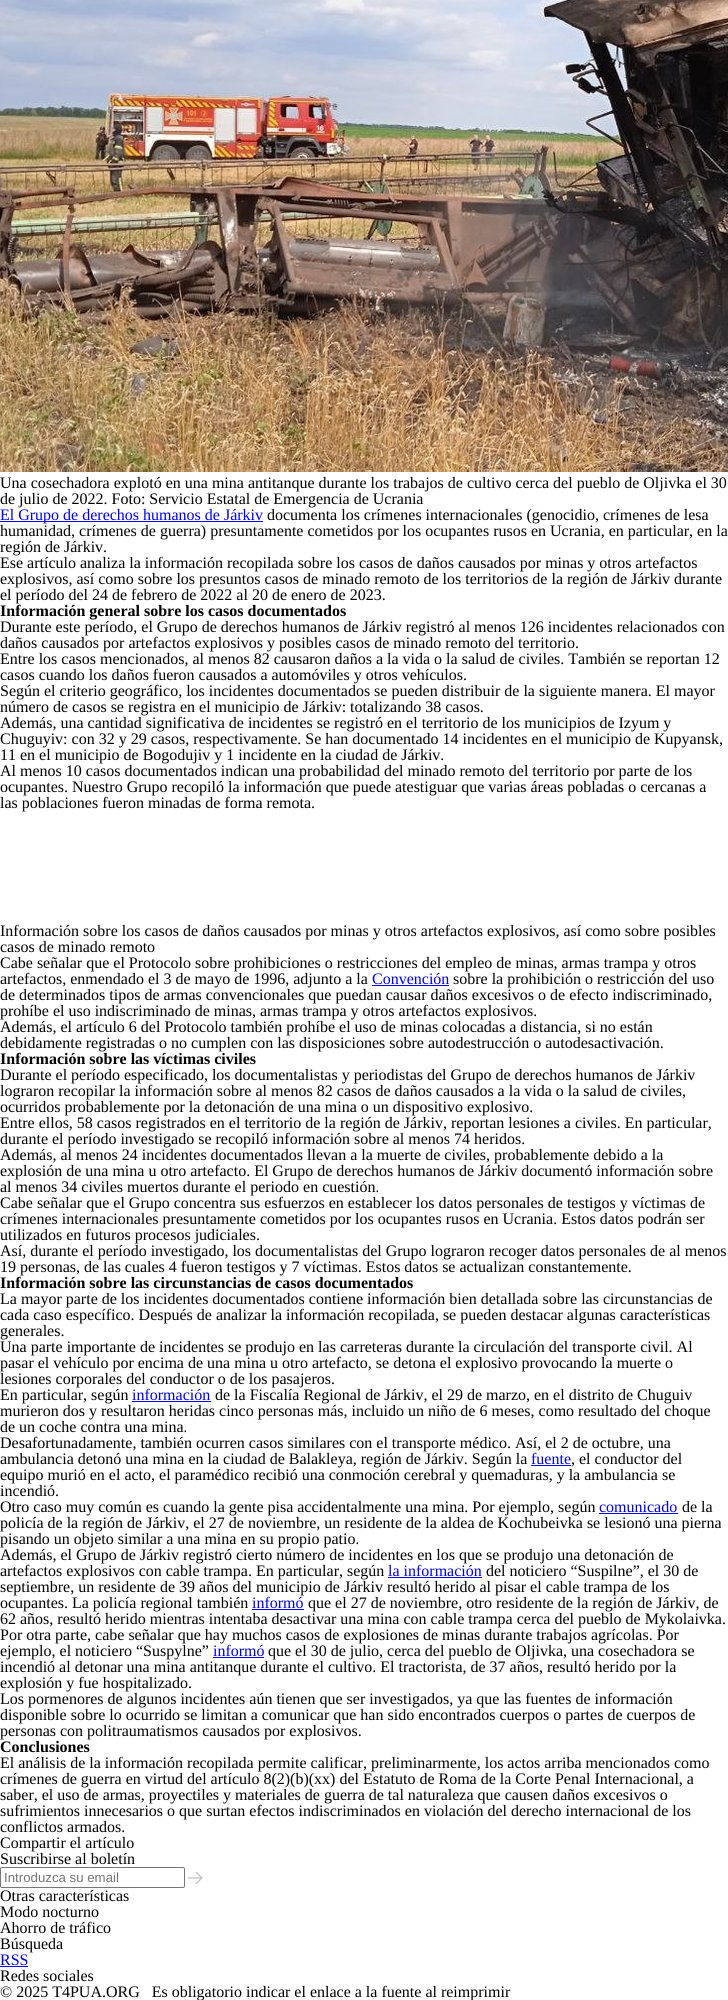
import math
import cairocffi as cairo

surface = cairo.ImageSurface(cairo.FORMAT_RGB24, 728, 2000)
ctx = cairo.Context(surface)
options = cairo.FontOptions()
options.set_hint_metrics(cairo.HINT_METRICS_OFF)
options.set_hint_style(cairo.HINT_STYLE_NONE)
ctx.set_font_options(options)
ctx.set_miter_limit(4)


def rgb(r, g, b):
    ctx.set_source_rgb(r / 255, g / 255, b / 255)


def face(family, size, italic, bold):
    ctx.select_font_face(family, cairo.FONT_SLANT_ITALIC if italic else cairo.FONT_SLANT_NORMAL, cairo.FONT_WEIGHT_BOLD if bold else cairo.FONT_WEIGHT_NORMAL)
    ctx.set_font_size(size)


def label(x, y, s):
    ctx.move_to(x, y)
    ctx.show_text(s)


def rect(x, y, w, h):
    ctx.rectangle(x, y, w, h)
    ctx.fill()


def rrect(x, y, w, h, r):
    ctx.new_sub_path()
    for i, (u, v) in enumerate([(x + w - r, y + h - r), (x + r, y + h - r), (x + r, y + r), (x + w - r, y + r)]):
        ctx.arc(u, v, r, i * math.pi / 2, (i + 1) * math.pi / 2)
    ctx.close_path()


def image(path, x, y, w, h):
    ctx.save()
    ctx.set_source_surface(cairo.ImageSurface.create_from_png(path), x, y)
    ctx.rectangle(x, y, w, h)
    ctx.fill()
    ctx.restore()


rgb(255, 255, 255)
ctx.paint()
image('image0.png', 0, 0, 728, 472)
face('Liberation Serif', 16, 0, 0)
rgb(0, 0, 0)
label(0, 488, 'Una cosechadora explotó en una mina antitanque durante los trabajos de cultivo cerca del pueblo de Oljivka el 30')
label(0, 504, 'de julio de 2022. Foto: Servicio Estatal de Emergencia de Ucrania')
rgb(0, 0, 238)
rect(0, 521, 263, 1)
label(0, 520, 'El Grupo de derechos humanos de Járkiv')
rgb(0, 0, 0)
label(267, 520, 'documenta los crímenes internacionales (genocidio, crímenes de lesa')
label(0, 536, 'humanidad, crímenes de guerra) presuntamente cometidos por los ocupantes rusos en Ucrania, en particular, en la')
label(0, 552, 'región de Járkiv.')
label(0, 568, 'Ese artículo analiza la información recopilada sobre los casos de daños causados por minas y otros artefactos')
label(0, 584, 'explosivos, así como sobre los presuntos casos de minado remoto de los territorios de la región de Járkiv durante')
label(0, 600, 'el período del 24 de febrero de 2022 al 20 de enero de 2023.')
face('Liberation Serif', 16, 0, 1)
label(0, 616, 'Información general sobre los casos documentados')
face('Liberation Serif', 16, 0, 0)
label(0, 632, 'Durante este período, el Grupo de derechos humanos de Járkiv registró al menos 126 incidentes relacionados con')
label(0, 648, 'daños causados por artefactos explosivos y posibles casos de minado remoto del territorio.')
label(0, 664, 'Entre los casos mencionados, al menos 82 causaron daños a la vida o la salud de civiles. También se reportan 12')
label(0, 680, 'casos cuando los daños fueron causados a automóviles y otros vehículos.')
label(0, 696, 'Según el criterio geográfico, los incidentes documentados se pueden distribuir de la siguiente manera. El mayor')
label(0, 712, 'número de casos se registra en el municipio de Járkiv: totalizando 38 casos.')
label(0, 728, 'Además, una cantidad significativa de incidentes se registró en el territorio de los municipios de Izyum y')
label(0, 744, 'Chuguyiv: con 32 y 29 casos, respectivamente. Se han documentado 14 incidentes en el municipio de Kupyansk,')
label(0, 760, '11 en el municipio de Bogodujiv y 1 incidente en la ciudad de Járkiv.')
label(0, 776, 'Al menos 10 casos documentados indican una probabilidad del minado remoto del territorio por parte de los')
label(0, 792, 'ocupantes. Nuestro Grupo recopiló la información que puede atestiguar que varias áreas pobladas o cercanas a')
label(0, 808, 'las poblaciones fueron minadas de forma remota.')
label(0, 936, 'Información sobre los casos de daños causados por minas y otros artefactos explosivos, así como sobre posibles')
label(0, 952, 'casos de minado remoto')
label(0, 968, 'Cabe señalar que el Protocolo sobre prohibiciones o restricciones del empleo de minas, armas trampa y otros')
label(0, 984, 'artefactos, enmendado el 3 de mayo de 1996, adjunto a la')
rgb(0, 0, 238)
label(372, 984, 'Convención')
rect(372, 985, 77, 1)
rgb(0, 0, 0)
label(453, 984, 'sobre la prohibición o restricción del uso')
label(0, 1000, 'de determinados tipos de armas convencionales que puedan causar daños excesivos o de efecto indiscriminado,')
label(0, 1016, 'prohíbe el uso indiscriminado de minas, armas trampa y otros artefactos explosivos.')
label(0, 1032, 'Además, el artículo 6 del Protocolo también prohíbe el uso de minas colocadas a distancia, si no están')
label(0, 1048, 'debidamente registradas o no cumplen con las disposiciones sobre autodestrucción o autodesactivación.')
face('Liberation Serif', 16, 0, 1)
label(0, 1064, 'Información sobre las víctimas civiles')
face('Liberation Serif', 16, 0, 0)
label(0, 1080, 'Durante el período especificado, los documentalistas y periodistas del Grupo de derechos humanos de Járkiv')
label(0, 1096, 'lograron recopilar la información sobre al menos 82 casos de daños causados a la vida o la salud de civiles,')
label(0, 1112, 'ocurridos probablemente por la detonación de una mina o un dispositivo explosivo.')
label(0, 1128, 'Entre ellos, 58 casos registrados en el territorio de la región de Járkiv, reportan lesiones a civiles. En particular,')
label(0, 1144, 'durante el período investigado se recopiló información sobre al menos 74 heridos.')
label(0, 1160, 'Además, al menos 24 incidentes documentados llevan a la muerte de civiles, probablemente debido a la')
label(0, 1176, 'explosión de una mina u otro artefacto. El Grupo de derechos humanos de Járkiv documentó información sobre')
label(0, 1192, 'al menos 34 civiles muertos durante el periodo en cuestión.')
label(0, 1208, 'Cabe señalar que el Grupo concentra sus esfuerzos en establecer los datos personales de testigos y víctimas de')
label(0, 1224, 'crímenes internacionales presuntamente cometidos por los ocupantes rusos en Ucrania. Estos datos podrán ser')
label(0, 1240, 'utilizados en futuros procesos judiciales.')
label(0, 1256, 'Así, durante el período investigado, los documentalistas del Grupo lograron recoger datos personales de al menos')
label(0, 1272, '19 personas, de las cuales 4 fueron testigos y 7 víctimas. Estos datos se actualizan constantemente.')
face('Liberation Serif', 16, 0, 1)
label(0, 1288, 'Información sobre las circunstancias de casos documentados')
face('Liberation Serif', 16, 0, 0)
label(0, 1304, 'La mayor parte de los incidentes documentados contiene información bien detallada sobre las circunstancias de')
label(0, 1320, 'cada caso específico. Después de analizar la información recopilada, se pueden destacar algunas características')
label(0, 1336, 'generales.')
label(0, 1352, 'Una parte importante de incidentes se produjo en las carreteras durante la circulación del transporte civil. Al')
label(0, 1368, 'pasar el vehículo por encima de una mina u otro artefacto, se detona el explosivo provocando la muerte o')
label(0, 1384, 'lesiones corporales del conductor o de los pasajeros.')
label(0, 1400, 'En particular, según')
rgb(0, 0, 238)
label(132, 1400, 'información')
rect(132, 1401, 79, 1)
rgb(0, 0, 0)
label(215, 1400, 'de la Fiscalía Regional de Járkiv, el 29 de marzo, en el distrito de Chuguiv')
label(0, 1416, 'murieron dos y resultaron heridas cinco personas más, incluido un niño de 6 meses, como resultado del choque')
label(0, 1432, 'de un coche contra una mina.')
label(0, 1448, 'Desafortunadamente, también ocurren casos similares con el transporte médico. Así, el 2 de octubre, una')
label(0, 1464, 'ambulancia detonó una mina en la ciudad de Balakleya, región de Járkiv. Según la')
rgb(0, 0, 238)
label(531, 1464, 'fuente')
rect(531, 1465, 40, 1)
rgb(0, 0, 0)
label(571, 1464, ', el conductor del')
label(0, 1480, 'equipo murió en el acto, el paramédico recibió una conmoción cerebral y quemaduras, y la ambulancia se')
label(0, 1496, 'incendió.')
label(0, 1512, 'Otro caso muy común es cuando la gente pisa accidentalmente una mina. Por ejemplo, según')
rgb(0, 0, 238)
label(599, 1512, 'comunicado')
rect(599, 1513, 79, 1)
rgb(0, 0, 0)
label(682, 1512, 'de la')
label(0, 1528, 'policía de la región de Járkiv, el 27 de noviembre, un residente de la aldea de Kochubeivka se lesionó una pierna')
label(0, 1544, 'pisando un objeto similar a una mina en su propio patio.')
label(0, 1560, 'Además, el Grupo de Járkiv registró cierto número de incidentes en los que se produjo una detonación de')
label(0, 1576, 'artefactos explosivos con cable trampa. En particular, según')
rgb(0, 0, 238)
label(388, 1576, 'la información')
rect(388, 1577, 94, 1)
rgb(0, 0, 0)
label(486, 1576, 'del noticiero “Suspilne”, el 30 de')
label(0, 1592, 'septiembre, un residente de 39 años del municipio de Járkiv resultó herido al pisar el cable trampa de los')
label(0, 1608, 'ocupantes. La policía regional también')
rgb(0, 0, 238)
label(252, 1608, 'informó')
rect(252, 1609, 52, 1)
rgb(0, 0, 0)
label(308, 1608, 'que el 27 de noviembre, otro residente de la región de Járkiv, de')
label(0, 1624, '62 años, resultó herido mientras intentaba desactivar una mina con cable trampa cerca del pueblo de Mykolaivka.')
label(0, 1640, 'Por otra parte, cabe señalar que hay muchos casos de explosiones de minas durante trabajos agrícolas. Por')
label(0, 1656, 'ejemplo, el noticiero “Suspylne”')
rgb(0, 0, 238)
label(213, 1656, 'informó')
rect(213, 1657, 51, 1)
rgb(0, 0, 0)
label(268, 1656, 'que el 30 de julio, cerca del pueblo de Oljivka, una cosechadora se')
label(0, 1672, 'incendió al detonar una mina antitanque durante el cultivo. El tractorista, de 37 años, resultó herido por la')
label(0, 1688, 'explosión y fue hospitalizado.')
label(0, 1704, 'Los pormenores de algunos incidentes aún tienen que ser investigados, ya que las fuentes de información')
label(0, 1720, 'disponible sobre lo ocurrido se limitan a comunicar que han sido encontrados cuerpos o partes de cuerpos de')
label(0, 1736, 'personas con politraumatismos causados por explosivos.')
face('Liberation Serif', 16, 0, 1)
label(0, 1752, 'Conclusiones')
face('Liberation Serif', 16, 0, 0)
label(0, 1768, 'El análisis de la información recopilada permite calificar, preliminarmente, los actos arriba mencionados como')
label(0, 1784, 'crímenes de guerra en virtud del artículo 8(2)(b)(xx) del Estatuto de Roma de la Corte Penal Internacional, a')
label(0, 1800, 'saber, el uso de armas, proyectiles y materiales de guerra de tal naturaleza que causen daños excesivos o')
label(0, 1816, 'sufrimientos innecesarios o que surtan efectos indiscriminados en violación del derecho internacional de los')
label(0, 1832, 'conflictos armados.')
label(0, 1848, 'Compartir el artículo')
label(0, 1864, 'Suscribirse al boletín')
rrect(0.5, 1867.5, 184, 20, 1.5)
rgb(118, 118, 118)
ctx.set_line_width(1)
ctx.stroke()
face('Liberation Sans', 13.25, 0, 0)
rgb(117, 117, 117)
label(4, 1882, 'Introduzca su email')
image('image1.png', 187, 1871, 16, 14)
face('Liberation Serif', 16, 0, 0)
rgb(0, 0, 0)
label(0, 1901, 'Otras características')
label(0, 1917, 'Modo nocturno')
label(0, 1933, 'Ahorro de tráfico')
label(0, 1949, 'Búsqueda')
rgb(0, 0, 238)
label(0, 1965, 'RSS')
rect(0, 1966, 28, 1)
rgb(0, 0, 0)
label(0, 1981, 'Redes sociales')
label(0, 1997, '© 2025 T4PUA.ORG   Es obligatorio indicar el enlace a la fuente al reimprimir')
surface.write_to_png('render.png')
